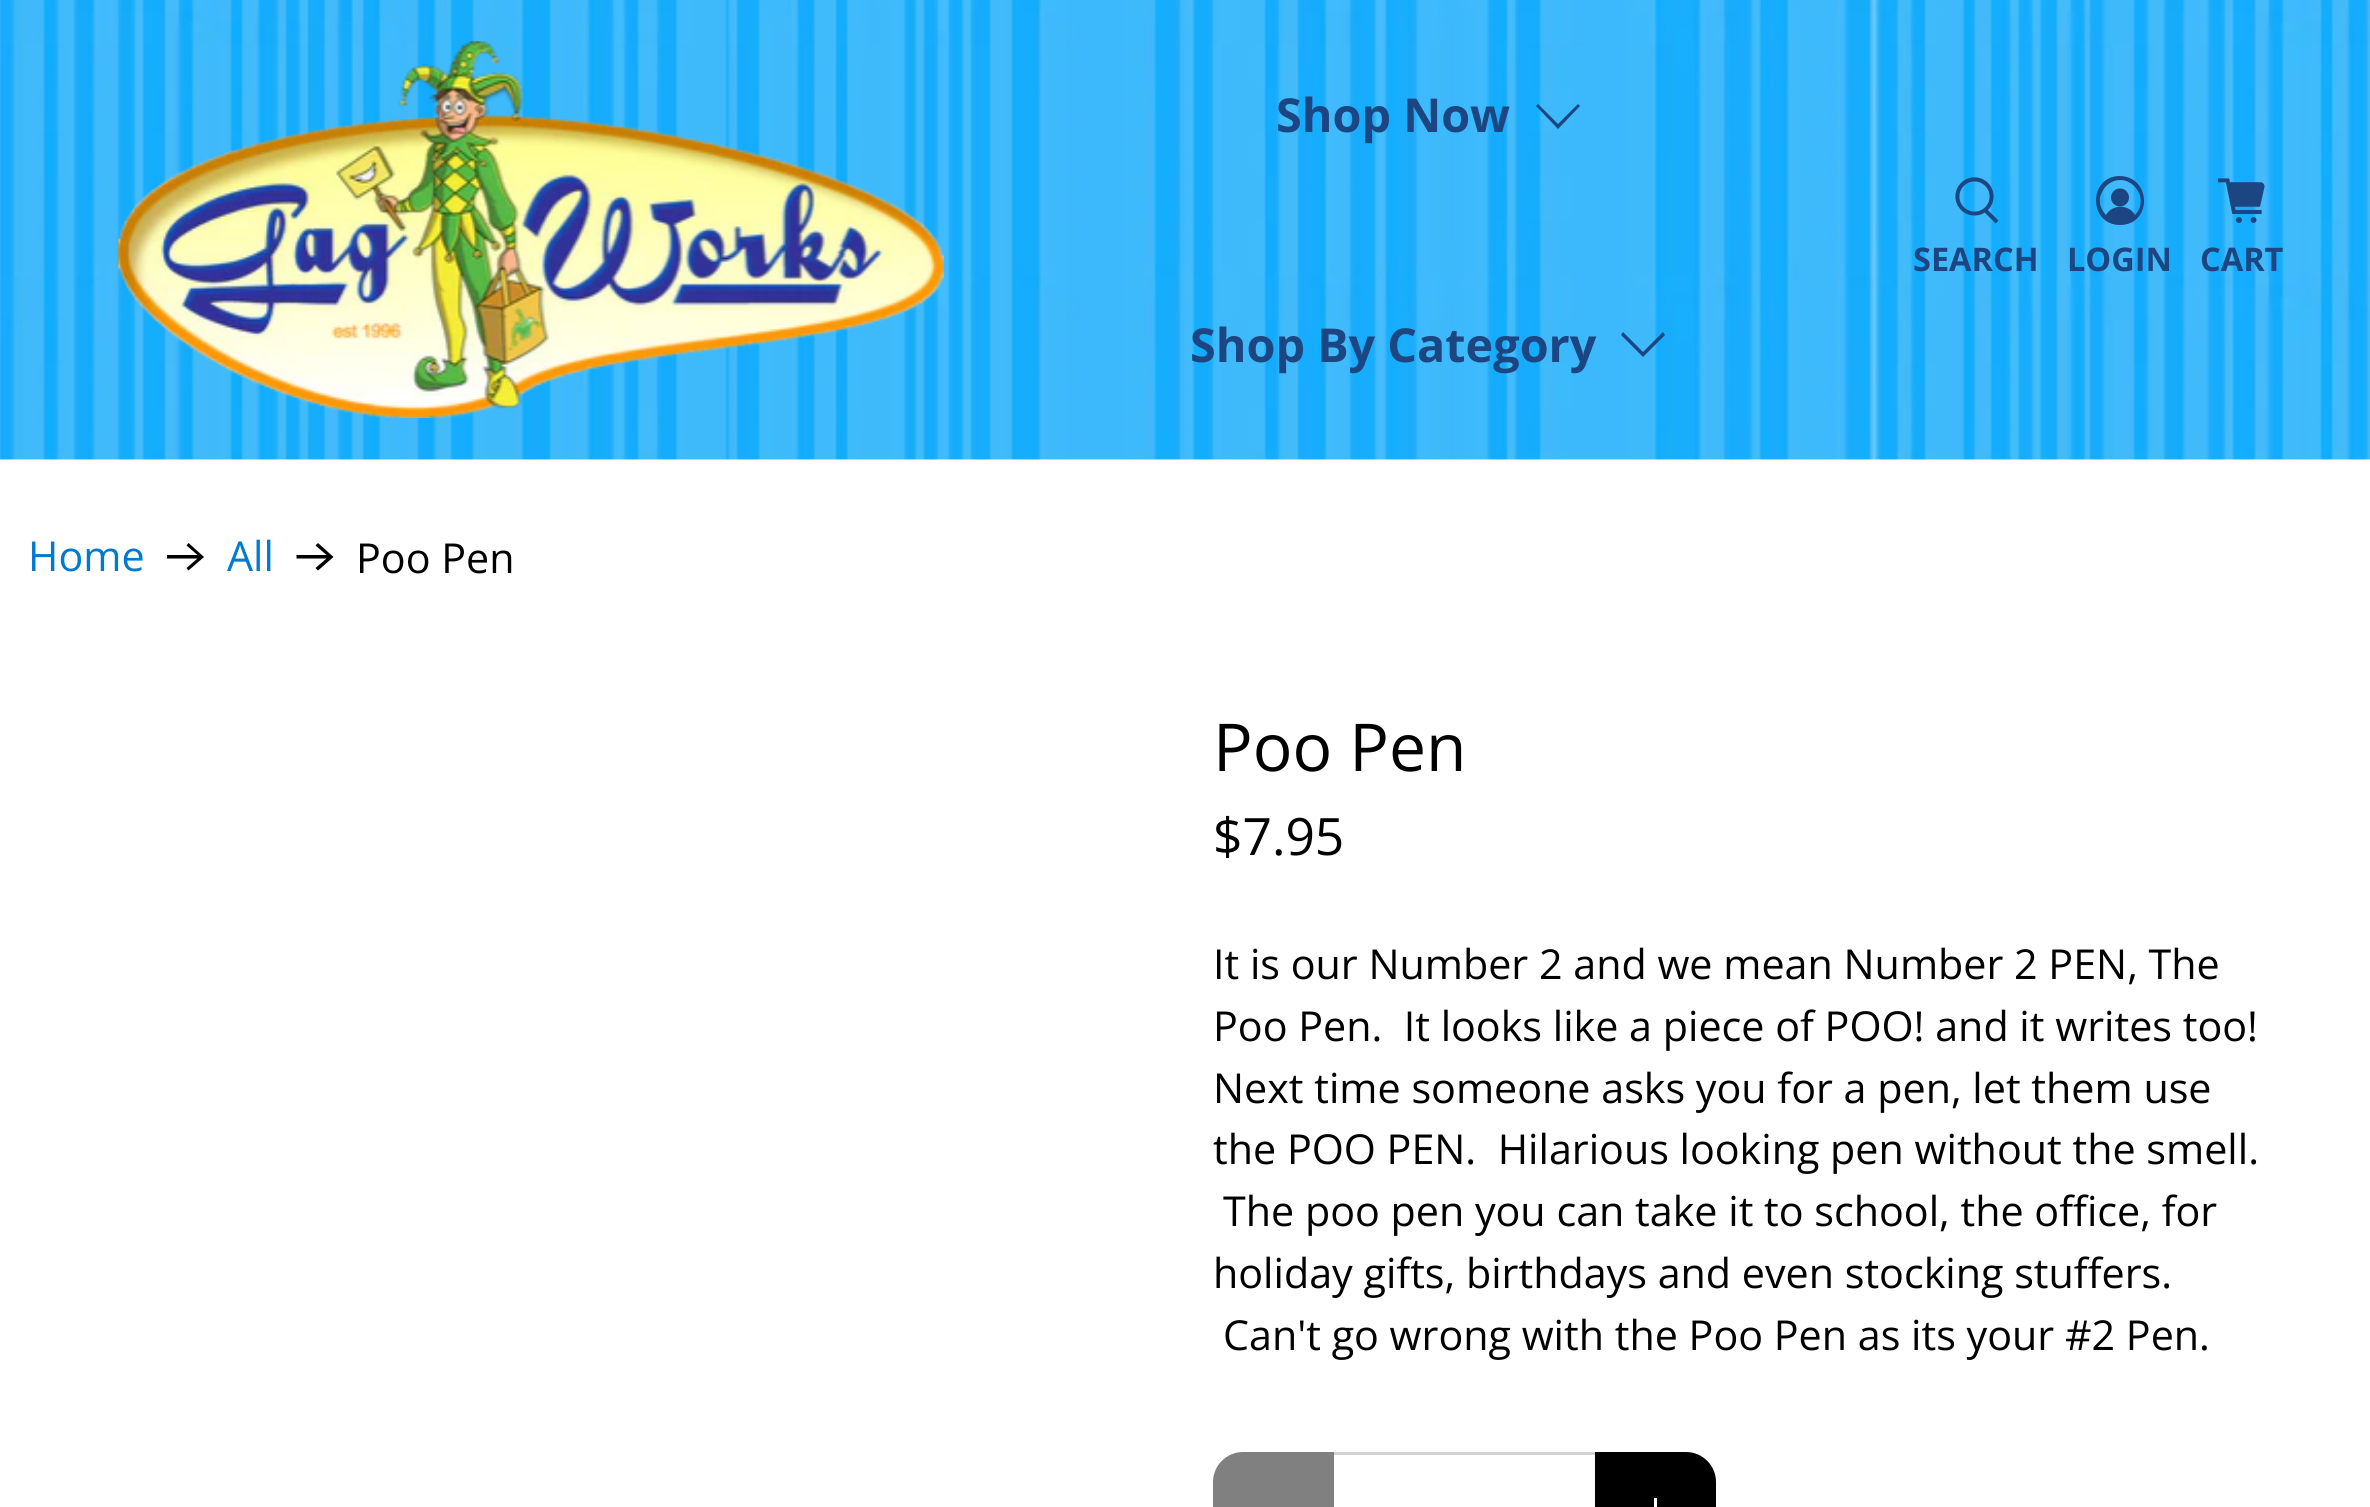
import math
import cairocffi as cairo

surface = cairo.ImageSurface(cairo.FORMAT_RGB24, 2370, 1507)
ctx = cairo.Context(surface)
options = cairo.FontOptions()
options.set_hint_metrics(cairo.HINT_METRICS_OFF)
options.set_hint_style(cairo.HINT_STYLE_NONE)
ctx.set_font_options(options)
ctx.set_miter_limit(4)


def rgb(r, g, b):
    ctx.set_source_rgb(r / 255, g / 255, b / 255)


def face(family, size, italic, bold):
    ctx.select_font_face(family, cairo.FONT_SLANT_ITALIC if italic else cairo.FONT_SLANT_NORMAL, cairo.FONT_WEIGHT_BOLD if bold else cairo.FONT_WEIGHT_NORMAL)
    ctx.set_font_size(size)


def label(x, y, s):
    ctx.move_to(x, y)
    ctx.show_text(s)


def rect(x, y, w, h):
    ctx.rectangle(x, y, w, h)
    ctx.fill()


def image(path, x, y, w, h):
    ctx.save()
    ctx.set_source_surface(cairo.ImageSurface.create_from_png(path), x, y)
    ctx.rectangle(x, y, w, h)
    ctx.fill()
    ctx.restore()


rgb(255, 255, 255)
ctx.paint()
image('image0.png', 0, 459, 2370, 1)
image('image1.png', 0, 0, 2370, 460)
image('image2.png', 118, 41, 826, 377)
face('Open Sans', 46.75, 0, 1)
rgb(28, 70, 129)
label(1276, 132, 'Shop Now')
ctx.new_path()
ctx.move_to(1558, 129)
ctx.line_to(1536, 106)
ctx.line_to(1538, 104)
ctx.line_to(1558, 124)
ctx.line_to(1578, 104)
ctx.line_to(1580, 106)
ctx.close_path()
ctx.fill()
label(1190, 362, 'Shop By Category')
ctx.new_path()
ctx.move_to(1643, 357)
ctx.line_to(1621, 335)
ctx.line_to(1623, 332)
ctx.line_to(1643, 352)
ctx.line_to(1663, 332)
ctx.line_to(1665, 335)
ctx.close_path()
ctx.fill()
image('image3.png', 1955, 177, 44, 47)
face('Open Sans', 32.5, 0, 1)
label(1913, 271, 'SEARCH')
ctx.new_path()
ctx.arc(2120, 197.5, 9, 0, 2 * math.pi)
ctx.fill()
ctx.new_path()
ctx.move_to(2120, 176)
ctx.curve_to(2088, 176, 2088, 225, 2120, 225)
ctx.curve_to(2152, 225, 2152, 177, 2120, 176)
ctx.close_path()
ctx.move_to(2135, 215)
ctx.curve_to(2129, 204, 2112, 204, 2106, 215)
ctx.curve_to(2101, 210, 2099, 203, 2100, 197)
ctx.curve_to(2102, 191, 2105, 186, 2110, 183)
ctx.curve_to(2130, 171, 2151, 198, 2135, 215)
ctx.close_path()
ctx.fill()
label(2067, 271, 'LOGIN')
image('image4.png', 2218, 178, 47, 45)
label(2200, 271, 'CART')
face('Open Sans', 41.25, 0, 0)
rgb(0, 122, 206)
label(28, 571, 'Home')
rgb(0, 0, 0)
ctx.new_path()
ctx.move_to(188.5, 543)
ctx.line_to(186.5, 545.5)
ctx.line_to(197.5, 555)
ctx.line_to(167, 555)
ctx.line_to(167, 558.5)
ctx.line_to(197.5, 558.5)
ctx.line_to(186.5, 568)
ctx.line_to(188.5, 570.5)
ctx.line_to(204, 557)
ctx.close_path()
ctx.fill()
rgb(0, 122, 206)
label(227, 571, 'All')
rgb(0, 0, 0)
ctx.new_path()
ctx.move_to(318, 543)
ctx.line_to(315.5, 545.5)
ctx.line_to(326.5, 555)
ctx.line_to(296.5, 555)
ctx.line_to(296.5, 558.5)
ctx.line_to(326.5, 558.5)
ctx.line_to(315.5, 568)
ctx.line_to(318, 570.5)
ctx.line_to(333.5, 557)
ctx.close_path()
ctx.fill()
label(356, 573, 'Poo Pen')
face('Open Sans', 66, 0, 0)
label(1213, 771, 'Poo Pen')
face('Open Sans', 51.5, 0, 0)
label(1213, 855, '$7.95')
face('Open Sans', 41.25, 0, 0)
label(1213, 979, 'It is our Number 2 and we mean Number 2 PEN, The')
label(1213, 1041, 'Poo Pen.  It looks like a piece of POO! and it writes too!')
label(1213, 1103, 'Next time someone asks you for a pen, let them use')
label(1213, 1164, 'the POO PEN.  Hilarious looking pen without the smell.')
label(1223, 1226, 'The poo pen you can take it to school, the office, for')
label(1213, 1288, 'holiday gifts, birthdays and even stocking stuffers.')
label(1223, 1350, 'Can\'t go wrong with the Poo Pen as its your #2 Pen.')
rgb(128, 128, 128)
ctx.new_path()
ctx.move_to(1243, 1452)
ctx.line_to(1334, 1452)
ctx.line_to(1334, 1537)
ctx.line_to(1243, 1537)
ctx.curve_to(1226.5, 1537, 1213, 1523.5, 1213, 1507)
ctx.line_to(1213, 1482)
ctx.curve_to(1213, 1465.5, 1226.5, 1452, 1243, 1452)
ctx.close_path()
ctx.fill()
rgb(211, 211, 211)
rect(1334, 1452, 261, 3)
rgb(0, 0, 0)
ctx.new_path()
ctx.move_to(1595, 1452)
ctx.line_to(1686, 1452)
ctx.curve_to(1702.5, 1452, 1716, 1465.5, 1716, 1482)
ctx.line_to(1716, 1507)
ctx.curve_to(1716, 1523.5, 1702.5, 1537, 1686, 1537)
ctx.line_to(1595, 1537)
ctx.close_path()
ctx.fill()
rgb(255, 255, 255)
rect(1654, 1498, 3, 9)
surface.write_to_png('render.png')
